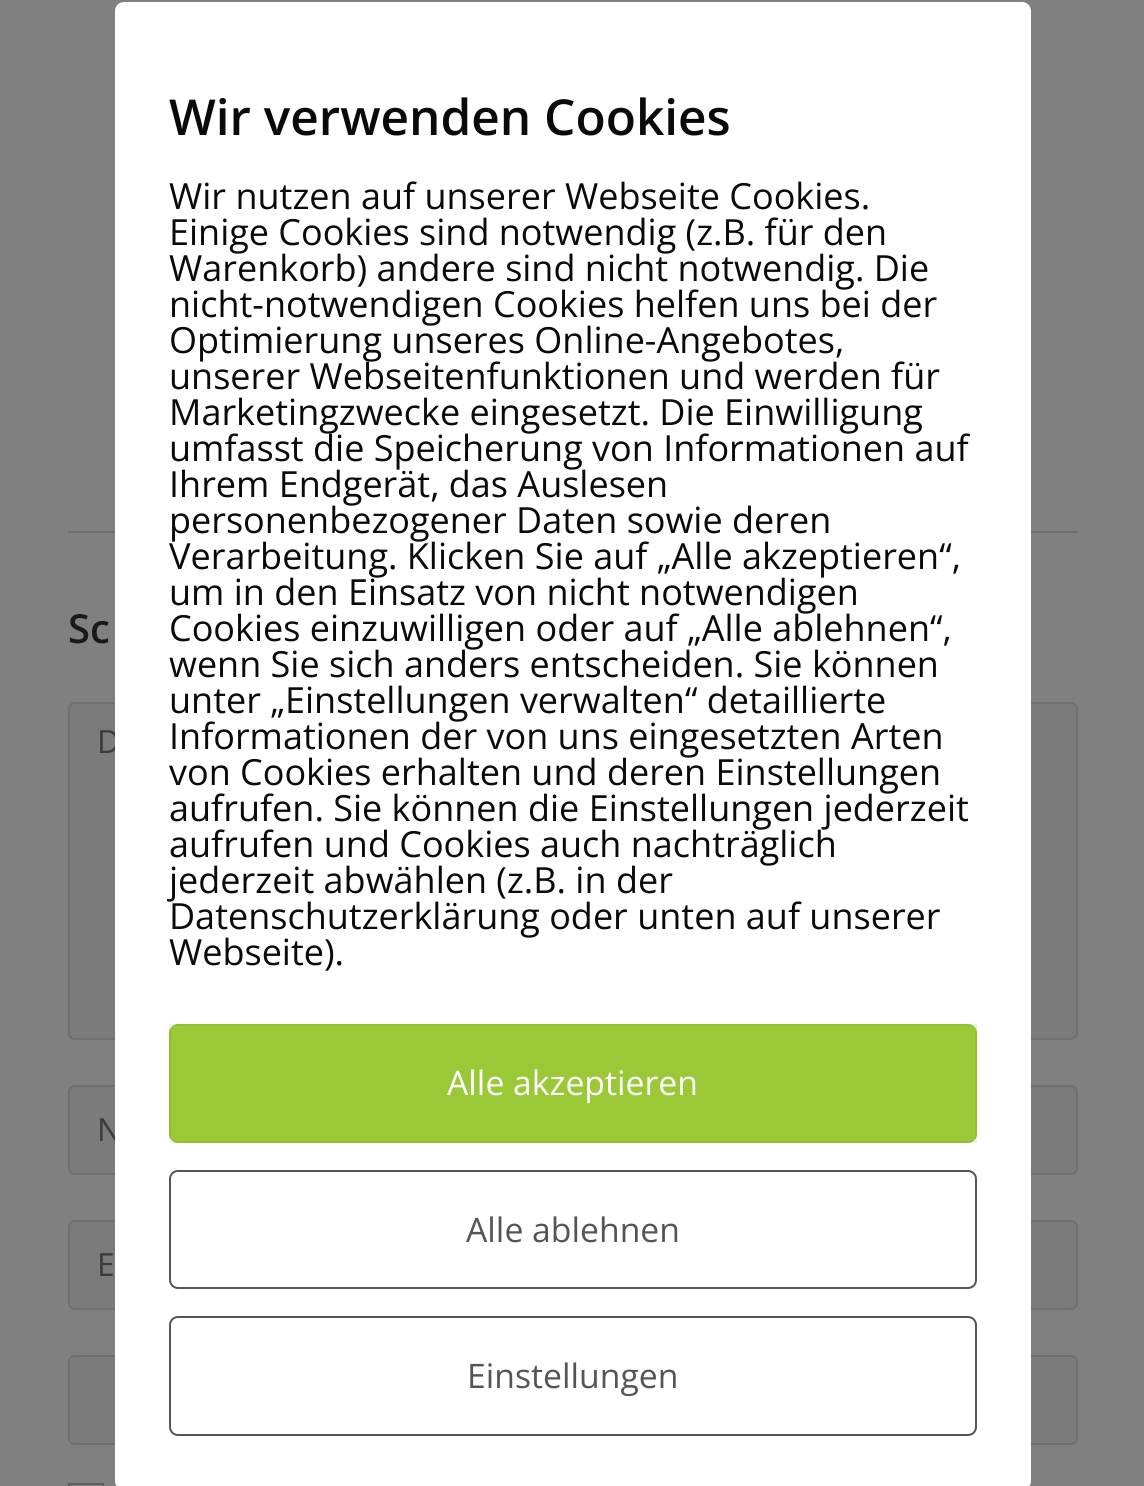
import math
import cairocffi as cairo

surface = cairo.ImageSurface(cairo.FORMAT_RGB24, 1144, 1486)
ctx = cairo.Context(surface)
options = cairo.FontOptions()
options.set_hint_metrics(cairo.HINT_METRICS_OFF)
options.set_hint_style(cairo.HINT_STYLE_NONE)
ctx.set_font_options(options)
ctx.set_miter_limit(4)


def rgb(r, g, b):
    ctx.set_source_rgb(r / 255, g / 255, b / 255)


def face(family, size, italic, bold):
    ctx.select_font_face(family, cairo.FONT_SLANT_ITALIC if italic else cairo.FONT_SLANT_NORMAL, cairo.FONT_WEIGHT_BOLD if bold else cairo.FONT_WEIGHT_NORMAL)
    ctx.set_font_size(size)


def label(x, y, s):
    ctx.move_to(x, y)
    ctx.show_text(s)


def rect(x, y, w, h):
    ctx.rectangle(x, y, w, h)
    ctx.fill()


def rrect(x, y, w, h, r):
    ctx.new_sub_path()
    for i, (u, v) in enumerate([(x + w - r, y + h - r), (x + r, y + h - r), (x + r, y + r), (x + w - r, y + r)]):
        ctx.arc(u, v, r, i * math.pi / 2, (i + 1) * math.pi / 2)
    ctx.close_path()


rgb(128, 128, 128)
ctx.paint()
rgb(111, 111, 111)
rect(68, 531, 1010, 2)
face('Open Sans SemiBold', 40, 0, 0)
rgb(26, 26, 26)
label(68, 643, 'Sc')
rgb(123, 123, 123)
rrect(69, 703, 1008, 336, 6)
ctx.fill_preserve()
rgb(111, 111, 111)
ctx.stroke()
face('Open Sans', 32, 0, 0)
rgb(59, 59, 59)
label(97, 753, 'D')
rgb(123, 123, 123)
rrect(69, 1086, 1008, 88, 6)
ctx.fill_preserve()
rgb(111, 111, 111)
ctx.stroke()
rgb(59, 59, 59)
label(97, 1141, 'N')
rgb(123, 123, 123)
rrect(69, 1221, 1008, 88, 6)
ctx.fill_preserve()
rgb(111, 111, 111)
ctx.stroke()
rgb(59, 59, 59)
label(97, 1276, 'E')
rgb(123, 123, 123)
rrect(69, 1356, 1008, 88, 6)
ctx.fill_preserve()
rgb(111, 111, 111)
ctx.stroke()
ctx.rectangle(69, 1484, 34, 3)
rgb(94, 94, 94)
ctx.stroke()
rgb(255, 255, 255)
rrect(115, 2, 916, 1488, 9)
ctx.fill()
face('Open Sans SemiBold', 49.5, 0, 0)
rgb(10, 10, 10)
label(169, 135, 'Wir verwenden Cookies')
face('Open Sans', 36, 0, 0)
label(169, 209, 'Wir nutzen auf unserer Webseite Cookies.')
label(169, 245, 'Einige Cookies sind notwendig (z.B. für den')
label(169, 281, 'Warenkorb) andere sind nicht notwendig. Die')
label(169, 317, 'nicht-notwendigen Cookies helfen uns bei der')
label(169, 353, 'Optimierung unseres Online-Angebotes,')
label(169, 389, 'unserer Webseitenfunktionen und werden für')
label(169, 425, 'Marketingzwecke eingesetzt. Die Einwilligung')
label(169, 461, 'umfasst die Speicherung von Informationen auf')
label(169, 497, 'Ihrem Endgerät, das Auslesen')
label(169, 533, 'personenbezogener Daten sowie deren')
label(169, 569, 'Verarbeitung. Klicken Sie auf „Alle akzeptieren“,')
label(169, 605, 'um in den Einsatz von nicht notwendigen')
label(169, 641, 'Cookies einzuwilligen oder auf „Alle ablehnen“,')
label(169, 677, 'wenn Sie sich anders entscheiden. Sie können')
label(169, 713, 'unter „Einstellungen verwalten“ detaillierte')
label(169, 749, 'Informationen der von uns eingesetzten Arten')
label(169, 785, 'von Cookies erhalten und deren Einstellungen')
label(169, 821, 'aufrufen. Sie können die Einstellungen jederzeit')
label(169, 857, 'aufrufen und Cookies auch nachträglich')
label(169, 893, 'jederzeit abwählen (z.B. in der')
label(169, 929, 'Datenschutzerklärung oder unten auf unserer')
label(169, 965, 'Webseite).')
rgb(154, 200, 54)
rrect(169, 1024, 808, 119, 9)
ctx.fill()
ctx.rectangle(170, 1025, 806, 117)
ctx.set_source_rgba(0, 0, 0, 0.06)
ctx.stroke()
face('Open Sans', 33.75, 0, 0)
rgb(255, 255, 255)
label(447, 1095, 'Alle akzeptieren')
rrect(170, 1171, 806, 117, 8)
rgb(85, 85, 85)
ctx.stroke()
label(466, 1242, 'Alle ablehnen')
rrect(170, 1317, 806, 118, 8)
ctx.stroke()
label(467, 1388, 'Einstellungen')
surface.write_to_png('render.png')
